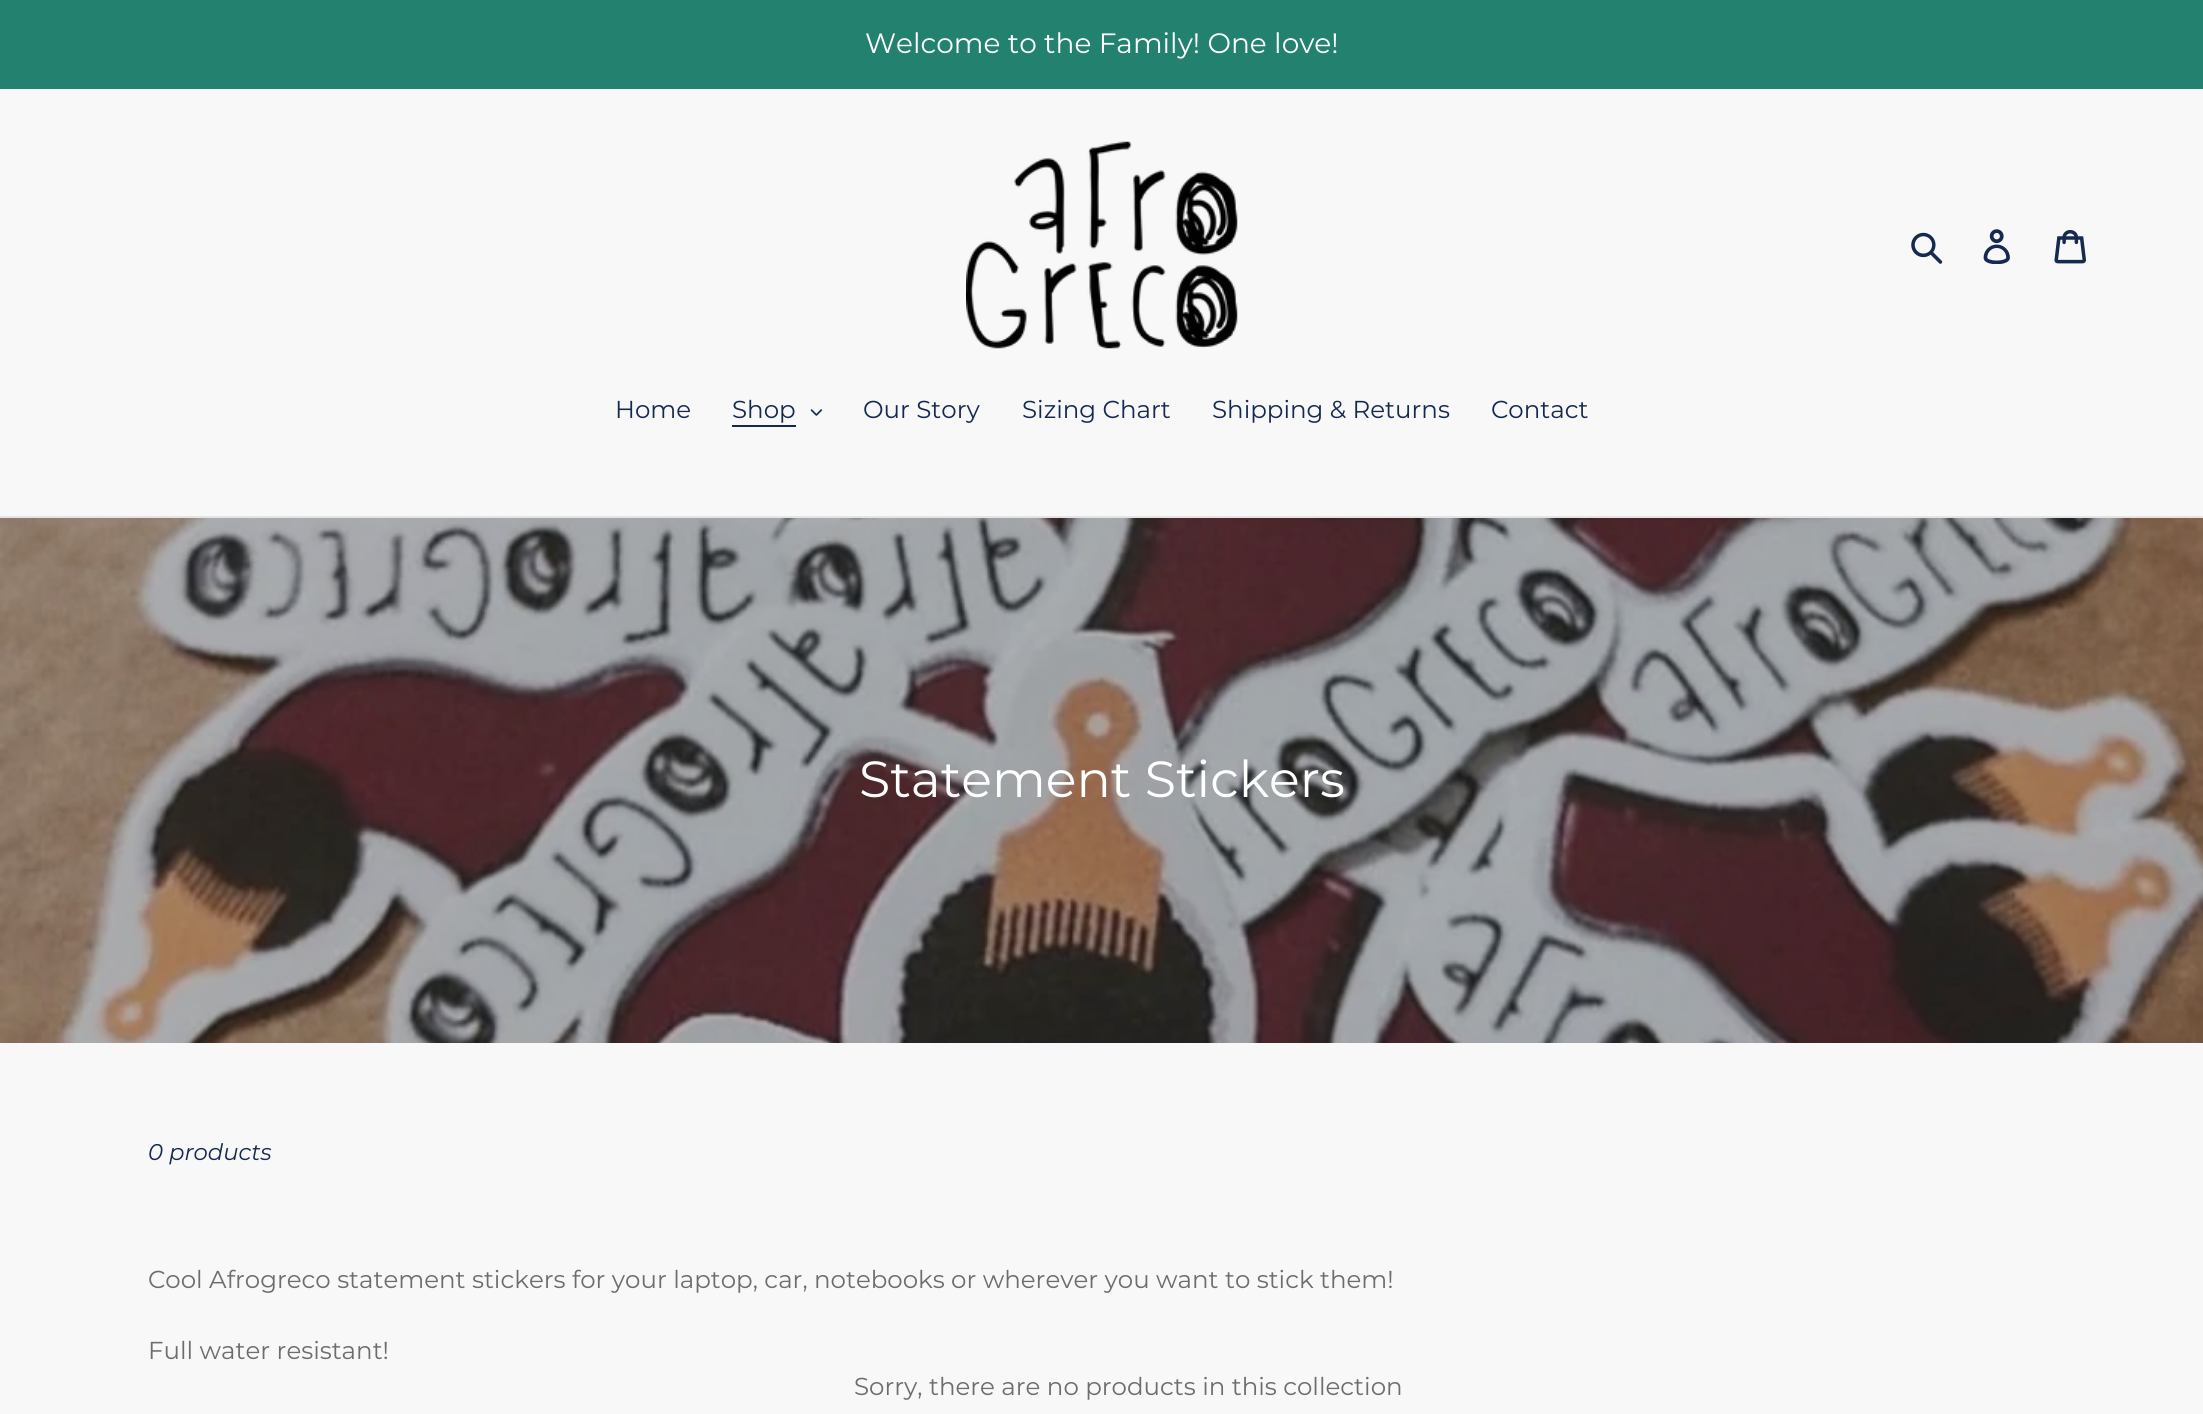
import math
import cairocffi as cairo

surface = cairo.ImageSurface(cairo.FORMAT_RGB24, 2203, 1414)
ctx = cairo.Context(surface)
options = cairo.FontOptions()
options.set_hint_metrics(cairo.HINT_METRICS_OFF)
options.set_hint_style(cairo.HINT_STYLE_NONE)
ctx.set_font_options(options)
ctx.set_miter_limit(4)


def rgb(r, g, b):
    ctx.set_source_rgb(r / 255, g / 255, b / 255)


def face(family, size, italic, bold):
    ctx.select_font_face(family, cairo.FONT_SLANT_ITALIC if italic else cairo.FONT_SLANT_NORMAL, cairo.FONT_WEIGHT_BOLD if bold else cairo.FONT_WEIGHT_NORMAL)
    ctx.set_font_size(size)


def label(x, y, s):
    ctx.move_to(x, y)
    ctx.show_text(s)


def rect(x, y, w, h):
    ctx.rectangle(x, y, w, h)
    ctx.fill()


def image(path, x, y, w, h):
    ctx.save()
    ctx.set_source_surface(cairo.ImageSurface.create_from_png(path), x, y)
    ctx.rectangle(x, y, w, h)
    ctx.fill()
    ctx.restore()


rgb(248, 248, 248)
ctx.paint()
rgb(35, 129, 112)
rect(0, 0, 2203, 89)
face('Montserrat', 28, 0, 0)
rgb(255, 255, 255)
label(865, 53, 'Welcome to the Family! One love!')
image('image0.png', 966, 141, 272, 208)
image('image1.png', 1911, 232, 32, 32)
image('image2.png', 1983, 229, 27, 35)
image('image3.png', 2054, 229, 32, 35)
rgb(228, 228, 228)
rect(0, 516, 2203, 2)
face('Montserrat', 24.5, 0, 0)
rgb(22, 41, 80)
label(615, 418, 'Home')
label(732, 418, 'Shop')
rect(732, 425, 64, 2)
image('image4.png', 810, 409, 13, 7)
label(863, 418, 'Our Story')
label(1022, 418, 'Sizing Chart')
label(1212, 418, 'Shipping & Returns')
label(1491, 418, 'Contact')
image('image5.png', 0, 518, 2203, 525)
face('Montserrat', 50.75, 0, 0)
rgb(255, 255, 255)
label(859, 797, 'Statement Stickers')
face('Montserrat', 22.75, 1, 0)
rgb(22, 41, 80)
label(148, 1160, '0 products')
face('Montserrat', 24.5, 0, 0)
rgb(109, 109, 109)
label(148, 1288, 'Cool Afrogreco statement stickers for your laptop, car, notebooks or wherever you want to stick them!')
label(148, 1359, 'Full water resistant!')
label(854, 1395, 'Sorry, there are no products in this collection')
surface.write_to_png('render.png')
